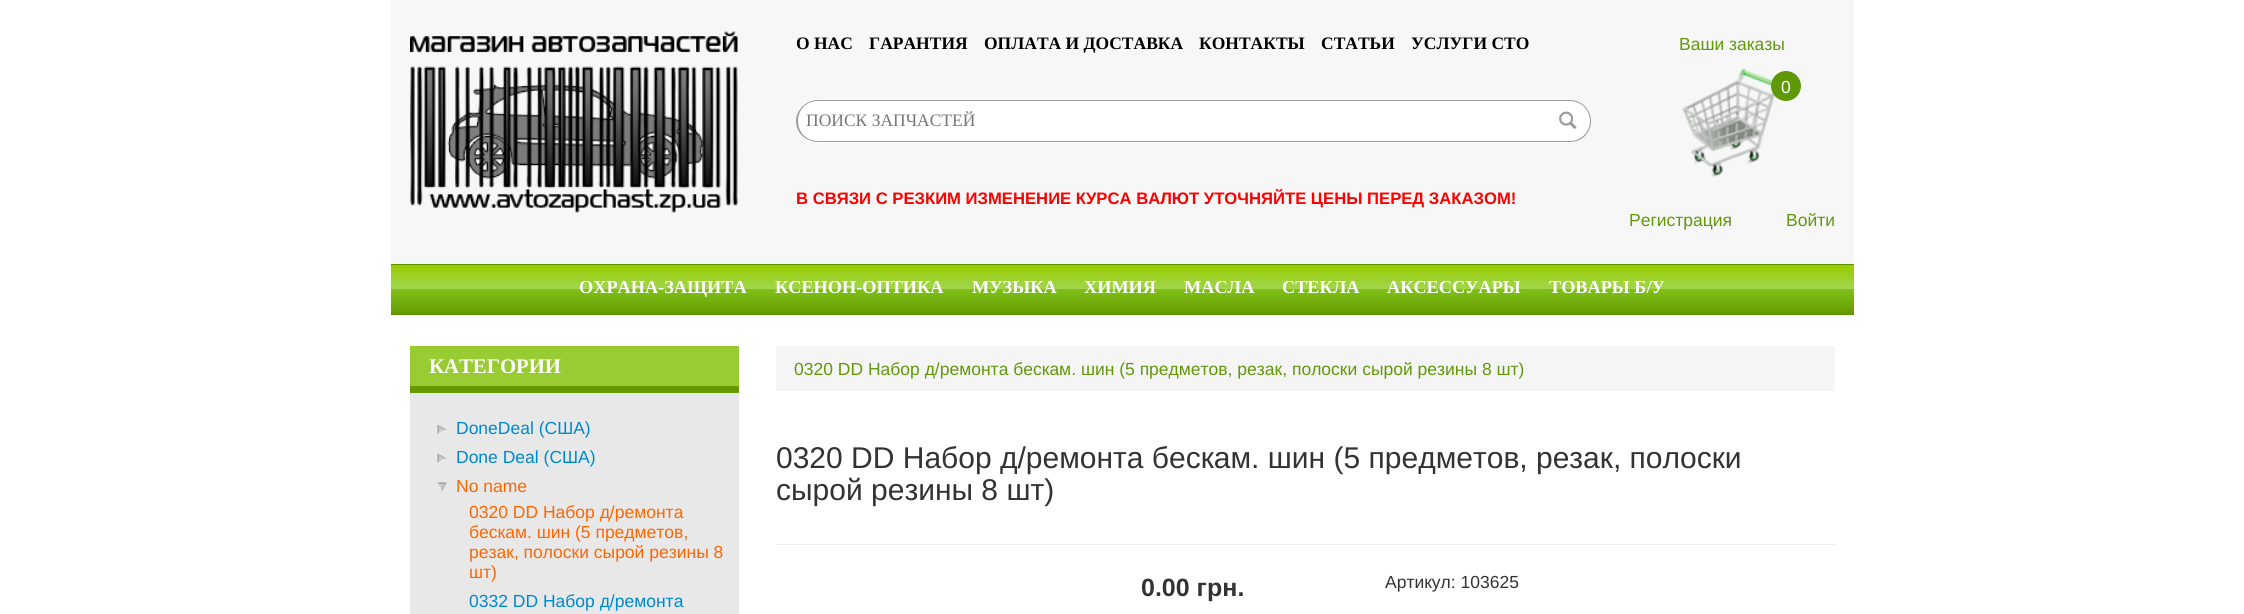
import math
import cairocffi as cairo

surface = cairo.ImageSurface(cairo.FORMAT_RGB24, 2244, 614)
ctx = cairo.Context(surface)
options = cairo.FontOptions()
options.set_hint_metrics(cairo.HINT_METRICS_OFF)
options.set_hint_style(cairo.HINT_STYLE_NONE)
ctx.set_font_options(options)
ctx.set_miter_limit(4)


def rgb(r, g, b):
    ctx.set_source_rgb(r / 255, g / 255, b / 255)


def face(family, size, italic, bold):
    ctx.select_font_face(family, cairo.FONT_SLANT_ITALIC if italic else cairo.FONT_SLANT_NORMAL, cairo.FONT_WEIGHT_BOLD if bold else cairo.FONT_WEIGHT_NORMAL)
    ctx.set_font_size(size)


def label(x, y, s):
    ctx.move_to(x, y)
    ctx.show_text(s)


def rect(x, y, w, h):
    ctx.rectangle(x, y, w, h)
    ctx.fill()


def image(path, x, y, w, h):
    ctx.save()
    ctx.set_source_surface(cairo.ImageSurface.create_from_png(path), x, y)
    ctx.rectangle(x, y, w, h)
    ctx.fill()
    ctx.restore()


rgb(255, 255, 255)
ctx.paint()
rgb(247, 247, 247)
rect(391, 0, 1463, 264)
image('image0.png', 410, 31, 328, 182)
face('Liberation Serif', 17.5, 0, 1)
rgb(0, 0, 0)
label(796, 49, 'О НАС')
label(869, 49, 'ГАРАНТИЯ')
label(984, 49, 'ОПЛАТА И ДОСТАВКА')
label(1199, 49, 'КОНТАКТЫ')
label(1321, 49, 'СТАТЬИ')
label(1411, 49, 'УСЛУГИ СТО')
rgb(255, 255, 255)
ctx.new_path()
ctx.move_to(1545, 100)
ctx.line_to(1569.5, 100)
ctx.curve_to(1581.5, 100, 1591, 109.5, 1591, 121.5)
ctx.curve_to(1591, 133.5, 1581.5, 143, 1569.5, 143)
ctx.line_to(1545, 143)
ctx.close_path()
ctx.fill()
rgb(156, 156, 156)
ctx.set_fill_rule(cairo.FILL_RULE_EVEN_ODD)
ctx.new_path()
ctx.move_to(1545, 100)
ctx.line_to(1570, 100)
ctx.curve_to(1582, 100, 1591, 110, 1591, 121)
ctx.curve_to(1591, 133, 1582, 142, 1570, 142)
ctx.line_to(1545, 142)
ctx.close_path()
ctx.move_to(1545, 101)
ctx.line_to(1570, 101)
ctx.curve_to(1581, 101, 1590, 110, 1590, 121)
ctx.curve_to(1590, 132, 1581, 141, 1570, 141)
ctx.line_to(1545, 141)
ctx.close_path()
ctx.fill()
rgb(255, 255, 255)
ctx.new_path()
ctx.move_to(817.5, 100)
ctx.line_to(1546, 100)
ctx.line_to(1546, 143)
ctx.line_to(817.5, 143)
ctx.curve_to(805.5, 143, 796, 133.5, 796, 121.5)
ctx.curve_to(796, 109.5, 805.5, 100, 817.5, 100)
ctx.close_path()
ctx.fill()
rgb(156, 156, 156)
ctx.new_path()
ctx.move_to(818, 100)
ctx.line_to(1546, 100)
ctx.line_to(1546, 142)
ctx.line_to(818, 142)
ctx.curve_to(806, 142, 796, 133, 796, 121)
ctx.curve_to(796, 110, 806, 100, 818, 100)
ctx.close_path()
ctx.move_to(818, 101)
ctx.line_to(1546, 101)
ctx.line_to(1546, 141)
ctx.line_to(818, 141)
ctx.curve_to(806, 141, 798, 132, 798, 121)
ctx.curve_to(798, 110, 806, 101, 818, 101)
ctx.close_path()
ctx.fill()
face('Liberation Serif', 17.5, 0, 0)
rgb(119, 119, 119)
label(806, 126, 'ПОИСК ЗАПЧАСТЕЙ')
image('image1.png', 1559, 111, 18, 18)
face('Liberation Sans', 16.65, 0, 1)
rgb(255, 0, 0)
label(796, 204, 'В СВЯЗИ С РЕЗКИМ ИЗМЕНЕНИЕ КУРСА ВАЛЮТ УТОЧНЯЙТЕ ЦЕНЫ ПЕРЕД ЗАКАЗОМ!')
face('Liberation Sans', 17.5, 0, 0)
rgb(97, 152, 10)
label(1679, 50, 'Ваши заказы')
image('image2.png', 1682, 68, 94, 109)
ctx.arc(1786, 86, 15, 0, 2 * math.pi)
ctx.fill()
rgb(255, 255, 255)
label(1781, 93, '0')
rgb(97, 152, 10)
label(1629, 226, 'Регистрация')
label(1786, 226, 'Войти')
gradient = cairo.LinearGradient(1123, 314, 1123, 265)
gradient.add_color_stop_rgba(0, 0.4, 0.6, 0, 1)
gradient.add_color_stop_rgba(0.51, 0.502, 0.761, 0.094, 1)
gradient.add_color_stop_rgba(0.51, 0.631, 0.835, 0.31, 1)
gradient.add_color_stop_rgba(1, 0.6, 0.8, 0, 1)
ctx.set_source(gradient)
rect(391, 265, 1463, 49)
rgb(91, 148, 0)
rect(391, 264, 1463, 1)
rect(391, 314, 1463, 1)
face('Liberation Serif', 18.25, 0, 1)
rgb(255, 255, 255)
label(579, 293, 'ОХРАНА-ЗАЩИТА')
label(775, 293, 'КСЕНОН-ОПТИКА')
label(972, 293, 'МУЗЫКА')
label(1084, 293, 'ХИМИЯ')
label(1184, 293, 'МАСЛА')
label(1282, 293, 'СТЕКЛА')
label(1387, 293, 'АКСЕССУАРЫ')
label(1549, 293, 'ТОВАРЫ Б/У')
rgb(153, 204, 51)
rect(410, 346, 329, 40)
rgb(102, 153, 0)
rect(410, 386, 329, 7)
face('Liberation Serif', 20.75, 0, 1)
rgb(255, 255, 255)
label(429, 373, 'КАТЕГОРИИ')
rgb(232, 232, 232)
rect(410, 393, 329, 221)
image('image3.png', 437, 425, 10, 9)
face('Liberation Sans', 17.5, 0, 0)
rgb(0, 136, 204)
label(456, 434, 'DoneDeal (США)')
image('image4.png', 437, 453, 10, 10)
label(456, 463, 'Done Deal (США)')
image('image5.png', 437, 482, 10, 10)
rgb(255, 102, 0)
label(456, 492, 'No name')
label(469, 518, '0320 DD Набор д/ремонта')
label(469, 538, 'бескам. шин (5 предметов,')
label(469, 558, 'резак, полоски сырой резины 8')
label(469, 578, 'шт)')
rgb(0, 136, 204)
label(469, 607, '0332 DD Набор д/ремонта')
rgb(245, 245, 245)
rect(776, 346, 1059, 45)
rgb(97, 152, 10)
label(794, 375, '0320 DD Набор д/ремонта бескам. шин (5 предметов, резак, полоски сырой резины 8 шт)')
rgb(238, 238, 238)
rect(776, 544, 1059, 1)
face('Liberation Sans', 30, 0, 0)
rgb(51, 51, 51)
label(776, 468, '0320 DD Набор д/ремонта бескам. шин (5 предметов, резак, полоски')
label(776, 500, 'сырой резины 8 шт)')
face('Liberation Sans', 25, 0, 1)
label(1141, 596, '0.00 грн.')
face('Liberation Sans', 17.5, 0, 0)
label(1385, 588, 'Артикул: 103625')
surface.write_to_png('render.png')
